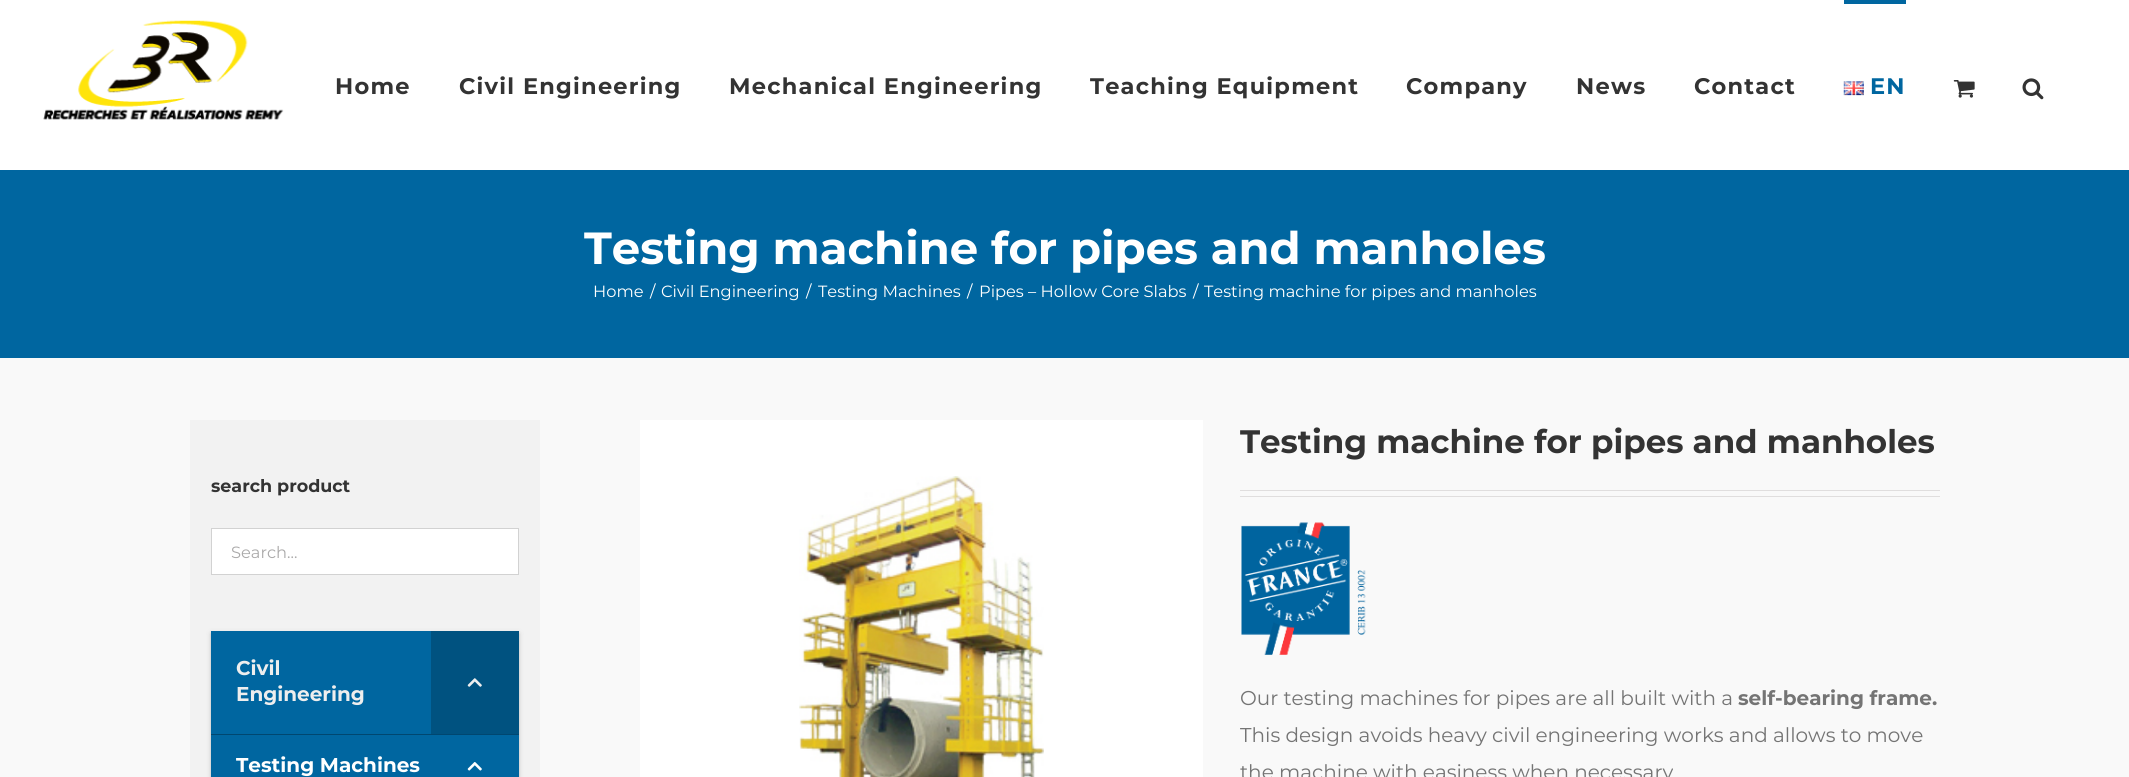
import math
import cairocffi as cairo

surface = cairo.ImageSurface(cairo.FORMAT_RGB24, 2129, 777)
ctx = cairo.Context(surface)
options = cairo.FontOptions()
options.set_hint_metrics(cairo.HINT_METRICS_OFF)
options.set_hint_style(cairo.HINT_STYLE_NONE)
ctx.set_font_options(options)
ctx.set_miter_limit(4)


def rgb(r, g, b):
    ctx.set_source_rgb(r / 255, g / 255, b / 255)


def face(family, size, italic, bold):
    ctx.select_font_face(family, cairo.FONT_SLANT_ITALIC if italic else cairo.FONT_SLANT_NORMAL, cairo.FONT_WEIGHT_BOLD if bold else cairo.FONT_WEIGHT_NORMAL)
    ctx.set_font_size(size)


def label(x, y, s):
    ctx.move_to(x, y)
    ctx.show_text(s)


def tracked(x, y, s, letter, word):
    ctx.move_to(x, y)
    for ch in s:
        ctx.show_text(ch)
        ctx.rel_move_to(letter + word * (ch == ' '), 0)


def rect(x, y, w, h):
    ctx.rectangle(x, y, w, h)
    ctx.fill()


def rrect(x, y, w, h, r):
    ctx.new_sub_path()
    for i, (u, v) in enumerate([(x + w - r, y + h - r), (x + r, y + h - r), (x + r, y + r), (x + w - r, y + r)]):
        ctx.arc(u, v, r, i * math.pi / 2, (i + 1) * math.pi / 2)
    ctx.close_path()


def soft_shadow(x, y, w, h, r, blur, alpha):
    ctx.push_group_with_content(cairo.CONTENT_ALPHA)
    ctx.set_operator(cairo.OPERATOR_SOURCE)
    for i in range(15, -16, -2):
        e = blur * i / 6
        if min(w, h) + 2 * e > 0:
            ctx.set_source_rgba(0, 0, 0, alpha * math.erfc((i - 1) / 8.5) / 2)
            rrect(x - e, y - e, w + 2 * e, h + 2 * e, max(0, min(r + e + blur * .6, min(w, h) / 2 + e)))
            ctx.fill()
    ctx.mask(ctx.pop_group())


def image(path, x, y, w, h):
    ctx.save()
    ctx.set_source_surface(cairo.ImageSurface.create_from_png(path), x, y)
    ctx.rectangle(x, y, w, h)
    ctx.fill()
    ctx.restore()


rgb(249, 249, 249)
ctx.paint()
rgb(255, 255, 255)
rect(0, 0, 2129, 170)
image('image0.png', 43, 20, 241, 100)
face('Montserrat', 22.5, 0, 1)
rgb(51, 51, 51)
tracked(335, 94, 'Home', 1.25, 0)
tracked(459, 94, 'Civil Engineering', 1.25, 0)
tracked(729, 94, 'Mechanical Engineering', 1.25, 0)
tracked(1090, 94, 'Teaching Equipment', 1.25, 0)
tracked(1406, 94, 'Company', 1.25, 0)
tracked(1576, 94, 'News', 1.25, 0)
tracked(1694, 94, 'Contact', 1.25, 0)
rgb(0, 102, 160)
rect(1844, 0, 62, 4)
image('image1.png', 1843, 81, 21, 15)
tracked(1870, 94, 'EN', 1.25, 0)
image('image2.png', 1953, 80, 22, 18)
image('image3.png', 2022, 78, 22, 22)
rect(0, 170, 2129, 188)
face('Montserrat', 45, 0, 1)
rgb(255, 255, 255)
label(584, 264, 'Testing machine for pipes and manholes')
face('Montserrat', 16.25, 0, 0)
label(593, 297, 'Home')
label(650, 297, '/')
label(661, 297, 'Civil Engineering')
label(806, 297, '/')
label(818, 297, 'Testing Machines')
label(967, 297, '/')
label(979, 297, 'Pipes – Hollow Core Slabs')
label(1193, 297, '/')
label(1204, 297, 'Testing machine for pipes and manholes')
rgb(242, 242, 242)
rect(190, 420, 350, 357)
face('Montserrat', 17.5, 0, 1)
rgb(51, 51, 51)
label(211, 492, 'search product')
rgb(255, 255, 255)
ctx.rectangle(211.5, 528.5, 307, 46)
ctx.fill_preserve()
rgb(210, 210, 210)
ctx.set_line_width(1)
ctx.stroke()
face('Montserrat', 16.25, 0, 0)
rgb(170, 169, 169)
label(231, 558, 'Search...')
rgb(0, 0, 0)
soft_shadow(211, 633, 308, 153, 0, 3, 0.12)
soft_shadow(211, 634, 308, 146, 0, 1, 0.14)
rgb(0, 102, 160)
rect(211, 631, 220, 103)
rgb(0, 71, 112)
rect(211, 734, 308, 1)
face('Montserrat', 20, 0, 1)
rgb(238, 238, 238)
label(236, 675, 'Civil')
label(236, 701, 'Engineering')
rgb(0, 82, 128)
rect(431, 631, 88, 103)
image('image4.png', 467, 678, 15, 9)
rgb(0, 102, 160)
rect(211, 735, 308, 42)
rgb(255, 255, 255)
label(236, 772, 'Testing Machines')
image('image5.png', 467, 762, 15, 9)
image('image6.png', 640, 420, 563, 357)
face('Montserrat', 32.5, 0, 1)
rgb(51, 51, 51)
label(1240, 453, 'Testing machine for pipes and manholes')
rgb(224, 222, 222)
rect(1240, 490, 700, 1)
rect(1240, 496, 700, 1)
image('image7.png', 1241, 522, 125, 133)
face('Montserrat', 20, 0, 0)
rgb(116, 116, 116)
label(1240, 705, 'Our testing machines for pipes are all built with a')
face('Montserrat', 20, 0, 1)
label(1738, 705, 'self-bearing frame.')
face('Montserrat', 20, 0, 0)
label(1240, 742, 'This design avoids heavy civil engineering works and allows to move')
label(1240, 779, 'the machine with easiness when necessary')
surface.write_to_png('render.png')
